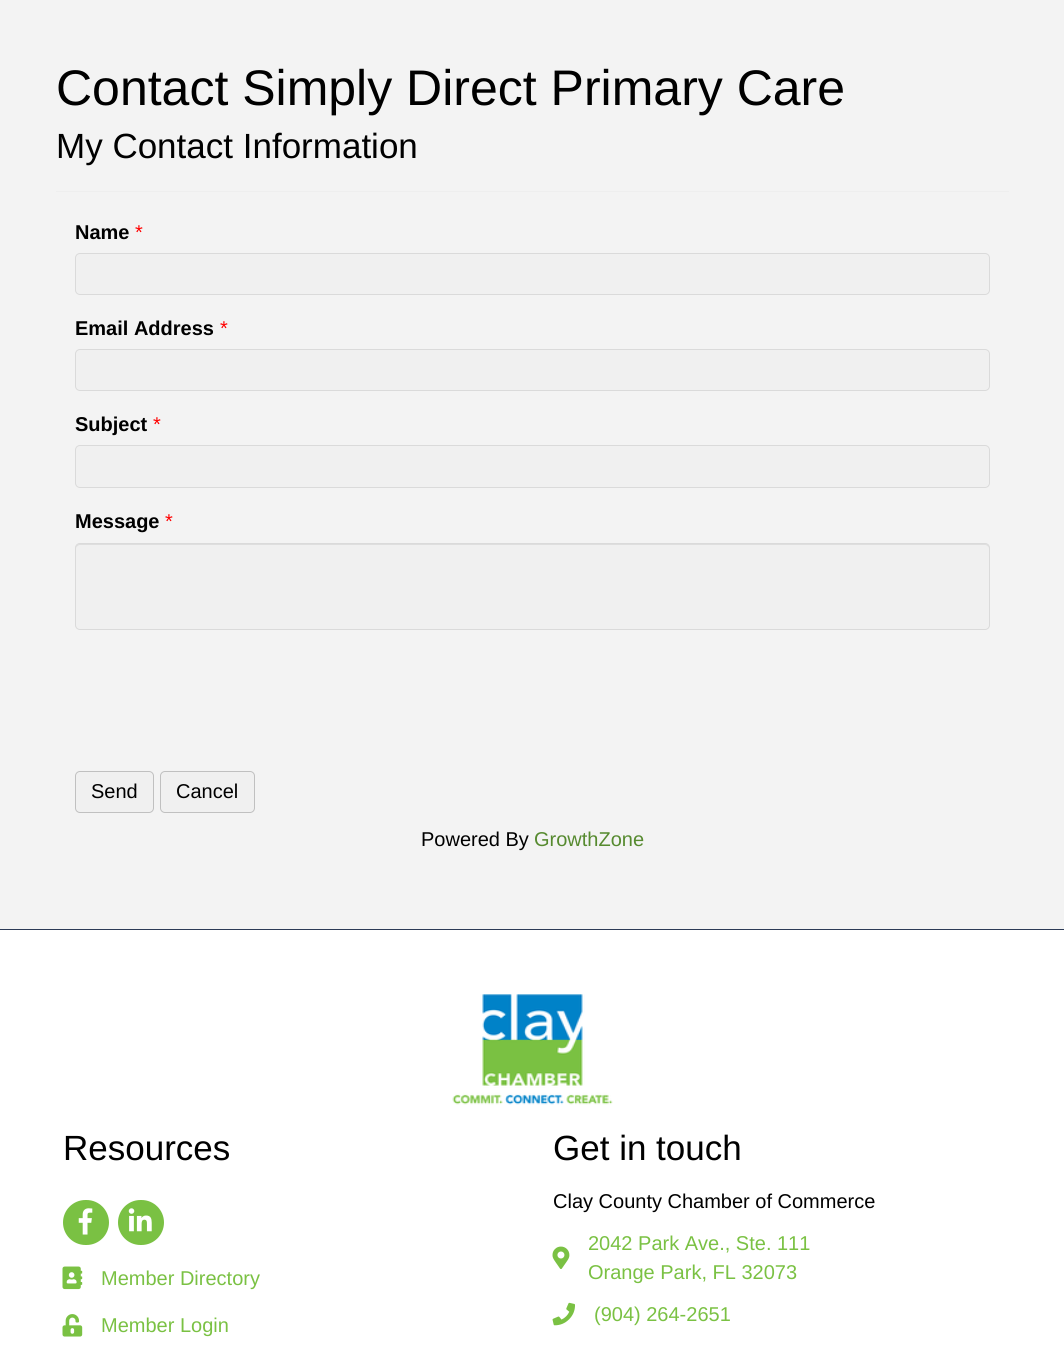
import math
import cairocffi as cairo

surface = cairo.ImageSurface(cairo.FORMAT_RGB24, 1064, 1349)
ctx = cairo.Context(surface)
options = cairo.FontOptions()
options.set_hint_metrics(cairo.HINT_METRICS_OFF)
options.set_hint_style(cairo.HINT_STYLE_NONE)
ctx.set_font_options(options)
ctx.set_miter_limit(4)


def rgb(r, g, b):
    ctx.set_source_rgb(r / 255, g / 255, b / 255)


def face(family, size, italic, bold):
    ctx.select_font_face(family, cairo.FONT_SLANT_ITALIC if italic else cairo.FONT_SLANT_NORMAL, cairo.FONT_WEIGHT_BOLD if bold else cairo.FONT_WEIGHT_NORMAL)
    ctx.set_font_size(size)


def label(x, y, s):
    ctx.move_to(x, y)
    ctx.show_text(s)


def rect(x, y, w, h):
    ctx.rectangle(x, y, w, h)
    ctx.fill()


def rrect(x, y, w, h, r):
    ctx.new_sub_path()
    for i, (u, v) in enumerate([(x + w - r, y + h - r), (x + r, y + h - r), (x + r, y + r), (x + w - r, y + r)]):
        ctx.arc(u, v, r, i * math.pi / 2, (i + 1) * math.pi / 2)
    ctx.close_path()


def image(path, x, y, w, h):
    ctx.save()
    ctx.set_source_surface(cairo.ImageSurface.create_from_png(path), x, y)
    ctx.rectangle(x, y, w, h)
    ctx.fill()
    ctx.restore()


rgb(243, 243, 243)
ctx.paint()
face('Liberation Sans', 50, 0, 0)
rgb(0, 0, 0)
label(56, 105, 'Contact Simply Direct Primary Care')
face('Liberation Sans', 35, 0, 0)
label(56, 158, 'My Contact Information')
rgb(238, 238, 238)
rect(56, 191, 953, 1)
face('Liberation Sans', 20, 0, 1)
rgb(0, 0, 0)
label(75, 239, 'Name')
face('Liberation Sans', 20, 0, 0)
rgb(255, 0, 0)
label(135, 239, '*')
rgb(240, 240, 240)
rrect(75.5, 253.5, 914, 41, 4.5)
ctx.fill_preserve()
rgb(218, 218, 218)
ctx.set_line_width(1)
ctx.stroke()
face('Liberation Sans', 20, 0, 1)
rgb(0, 0, 0)
label(75, 335, 'Email Address')
face('Liberation Sans', 20, 0, 0)
rgb(255, 0, 0)
label(220, 335, '*')
rgb(240, 240, 240)
rrect(75.5, 349.5, 914, 41, 4.5)
ctx.fill_preserve()
rgb(218, 218, 218)
ctx.stroke()
face('Liberation Sans', 20, 0, 1)
rgb(0, 0, 0)
label(75, 431, 'Subject')
face('Liberation Sans', 20, 0, 0)
rgb(255, 0, 0)
label(153, 431, '*')
rgb(240, 240, 240)
rrect(75.5, 445.5, 914, 42, 4.5)
ctx.fill_preserve()
rgb(218, 218, 218)
ctx.stroke()
face('Liberation Sans', 20, 0, 1)
rgb(0, 0, 0)
label(75, 528, 'Message')
face('Liberation Sans', 20, 0, 0)
rgb(255, 0, 0)
label(165, 528, '*')
rgb(240, 240, 240)
rrect(75, 543, 915, 87, 5)
ctx.fill()
rgb(222, 222, 222)
ctx.new_path()
ctx.move_to(80, 545)
ctx.line_to(985, 545)
ctx.curve_to(987, 545, 989, 547, 989, 549)
ctx.curve_to(989, 546, 988, 544, 985, 544)
ctx.line_to(80, 544)
ctx.curve_to(77, 544, 76, 546, 76, 549)
ctx.curve_to(76, 547, 78, 545, 80, 545)
ctx.close_path()
ctx.fill()
rrect(75.5, 543.5, 914, 86, 4.5)
rgb(218, 218, 218)
ctx.stroke()
rgb(240, 240, 240)
rrect(75.5, 771.5, 78, 41, 4.5)
ctx.fill_preserve()
rgb(192, 192, 192)
ctx.stroke()
rgb(0, 0, 0)
label(91, 798, 'Send')
rgb(240, 240, 240)
rrect(160.5, 771.5, 94, 41, 4.5)
ctx.fill_preserve()
rgb(192, 192, 192)
ctx.stroke()
rgb(0, 0, 0)
label(176, 798, 'Cancel')
label(421, 846, 'Powered By')
rgb(86, 138, 47)
label(534, 846, 'GrowthZone')
rgb(255, 255, 255)
rect(0, 930, 1064, 419)
rgb(44, 58, 86)
rect(0, 929, 1064, 1)
image('image0.png', 452, 994, 161, 111)
face('Liberation Sans', 35, 0, 0)
rgb(0, 0, 0)
label(63, 1160, 'Resources')
rgb(122, 193, 67)
rrect(63, 1200, 46, 45, 22.5)
ctx.fill()
image('image1.png', 78, 1208, 15, 27)
rrect(118, 1200, 46, 45, 22.5)
ctx.fill()
image('image2.png', 128, 1208, 24, 24)
image('image3.png', 62, 1266, 21, 24)
face('Liberation Sans', 20, 0, 0)
label(101, 1285, 'Member Directory')
image('image4.png', 62, 1314, 21, 23)
label(101, 1332, 'Member Login')
face('Liberation Sans', 35, 0, 0)
rgb(0, 0, 0)
label(553, 1160, 'Get in touch')
face('Liberation Sans', 20, 0, 0)
label(553, 1208, 'Clay County Chamber of Commerce')
image('image5.png', 552, 1246, 18, 23)
rgb(122, 193, 67)
label(588, 1250, '2042 Park Ave., Ste. 111')
label(588, 1279, 'Orange Park, FL 32073')
image('image6.png', 552, 1302, 23, 24)
label(594, 1321, '(904) 264-2651')
surface.write_to_png('render.png')
